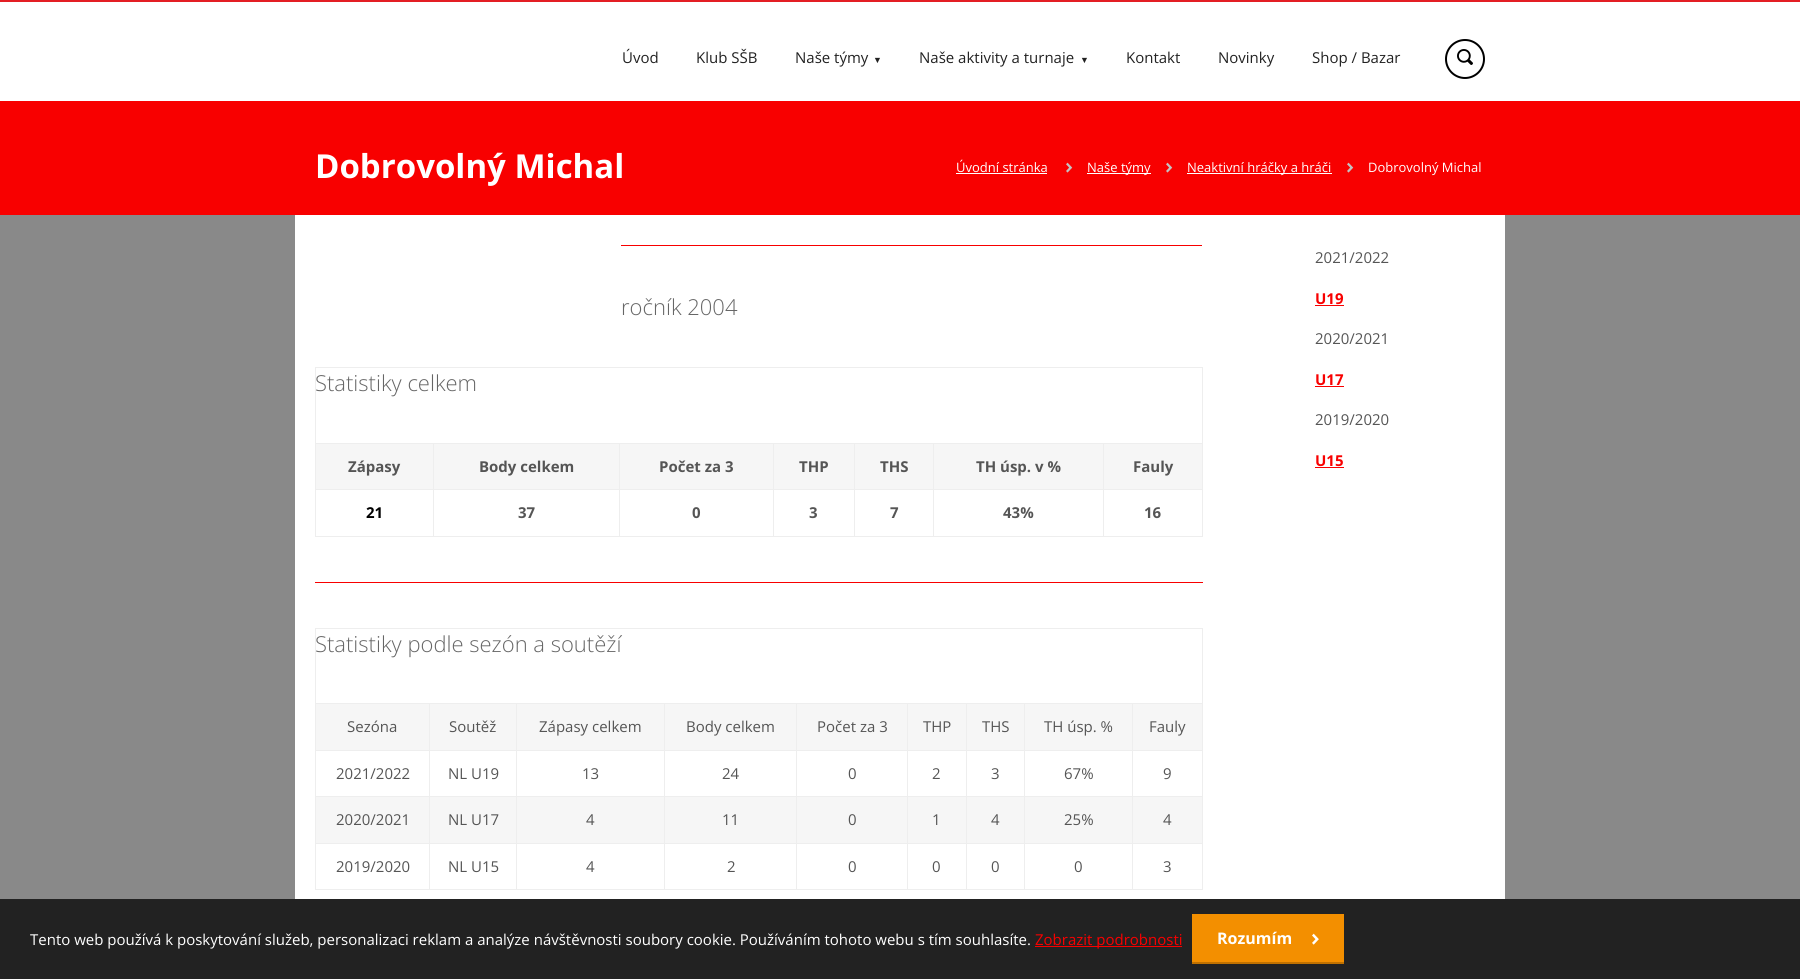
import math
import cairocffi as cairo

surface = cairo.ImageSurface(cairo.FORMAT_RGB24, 1800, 979)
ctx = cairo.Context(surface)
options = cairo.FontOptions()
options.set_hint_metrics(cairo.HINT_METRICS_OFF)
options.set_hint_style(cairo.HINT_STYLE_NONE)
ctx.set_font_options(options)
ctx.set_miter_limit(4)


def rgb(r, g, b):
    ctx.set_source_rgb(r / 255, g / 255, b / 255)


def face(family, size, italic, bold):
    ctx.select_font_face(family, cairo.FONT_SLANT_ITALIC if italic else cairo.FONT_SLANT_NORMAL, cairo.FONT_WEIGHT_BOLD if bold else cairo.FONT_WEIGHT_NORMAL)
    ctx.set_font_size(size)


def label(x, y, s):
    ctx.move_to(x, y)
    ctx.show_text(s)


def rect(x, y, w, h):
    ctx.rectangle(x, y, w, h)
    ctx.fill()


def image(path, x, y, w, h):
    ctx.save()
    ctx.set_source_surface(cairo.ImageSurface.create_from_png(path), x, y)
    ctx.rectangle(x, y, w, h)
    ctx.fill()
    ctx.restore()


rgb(137, 137, 137)
ctx.paint()
rgb(255, 255, 255)
rect(0, 2, 1800, 99)
rgb(227, 30, 36)
rect(0, 0, 1800, 2)
face('Open Sans', 15, 0, 0)
rgb(34, 34, 34)
label(622, 63, 'Úvod')
label(696, 63, 'Klub SŠB')
label(795, 63, 'Naše týmy')
face('Liberation Sans', 9, 0, 0)
label(873, 63, '▼')
face('Open Sans', 15, 0, 0)
label(919, 63, 'Naše aktivity a turnaje')
face('Liberation Sans', 9, 0, 0)
label(1080, 63, '▼')
face('Open Sans', 15, 0, 0)
label(1126, 63, 'Kontakt')
label(1218, 63, 'Novinky')
label(1312, 63, 'Shop / Bazar')
ctx.new_path()
ctx.arc(1465, 59, 19, 0, 2 * math.pi)
rgb(0, 0, 0)
ctx.stroke()
image('image0.png', 1457, 49, 16, 16)
rgb(248, 0, 0)
rect(0, 101, 1800, 114)
face('Open Sans', 33, 0, 1)
rgb(255, 255, 255)
label(315, 178, 'Dobrovolný Michal')
face('Open Sans', 13, 0, 0)
label(956, 172, 'Úvodní stránka')
rect(956, 173, 91, 1)
image('image1.png', 1066, 162, 7, 11)
rect(1087, 173, 64, 1)
label(1087, 172, 'Naše týmy')
image('image1.png', 1166, 162, 7, 11)
rect(1187, 173, 145, 1)
label(1187, 172, 'Neaktivní hráčky a hráči')
image('image1.png', 1347, 162, 7, 11)
label(1368, 172, 'Dobrovolný Michal')
rect(295, 215, 1210, 684)
rgb(248, 0, 0)
rect(621, 245, 581, 1)
face('Open Sans Light', 22, 0, 0)
rgb(102, 102, 102)
label(621, 315, 'ročník 2004')
rgb(238, 238, 238)
rect(315, 367, 888, 1)
rect(1202, 367, 1, 170)
rect(315, 536, 888, 1)
rect(315, 367, 1, 170)
rgb(102, 102, 102)
label(315, 391, 'Statistiky celkem')
rgb(246, 246, 246)
rect(316, 444, 886, 45)
rgb(238, 238, 238)
rect(1103, 443, 100, 1)
rect(1103, 489, 100, 1)
rect(1103, 489, 1, 48)
rect(933, 489, 171, 1)
rect(1103, 443, 1, 47)
rect(933, 443, 171, 1)
rect(933, 489, 1, 48)
rect(854, 489, 80, 1)
rect(933, 443, 1, 47)
rect(854, 443, 80, 1)
rect(854, 489, 1, 48)
rect(773, 489, 82, 1)
rect(854, 443, 1, 47)
rect(773, 443, 82, 1)
rect(773, 489, 1, 48)
rect(619, 489, 155, 1)
rect(773, 443, 1, 47)
rect(619, 443, 155, 1)
rect(619, 489, 1, 48)
rect(433, 489, 187, 1)
rect(619, 443, 1, 47)
rect(433, 443, 187, 1)
rect(433, 489, 1, 48)
rect(315, 489, 119, 1)
rect(433, 443, 1, 47)
rect(315, 443, 119, 1)
face('Open Sans', 15, 0, 1)
rgb(85, 85, 85)
label(348, 472, 'Zápasy')
label(479, 472, 'Body celkem')
label(659, 472, 'Počet za 3')
label(799, 472, 'THP')
label(880, 472, 'THS')
label(976, 472, 'TH úsp. v %')
label(1133, 472, 'Fauly')
rgb(0, 0, 0)
label(366, 518, '21')
rgb(85, 85, 85)
label(518, 518, '37')
label(692, 518, '0')
label(809, 518, '3')
label(890, 518, '7')
label(1003, 518, '43%')
label(1144, 518, '16')
rgb(248, 0, 0)
rect(315, 582, 888, 1)
rgb(238, 238, 238)
rect(315, 628, 888, 1)
rect(1202, 628, 1, 262)
rect(315, 889, 888, 1)
rect(315, 628, 1, 262)
face('Open Sans Light', 22, 0, 0)
rgb(102, 102, 102)
label(315, 652, 'Statistiky podle sezón a soutěží')
rgb(246, 246, 246)
rect(316, 704, 886, 46)
rgb(238, 238, 238)
rect(1132, 703, 71, 1)
rect(1132, 750, 71, 1)
rect(1132, 796, 71, 1)
rgb(246, 246, 246)
rect(316, 797, 886, 46)
rgb(238, 238, 238)
rect(1132, 843, 71, 1)
rect(1132, 843, 1, 47)
rect(1024, 843, 109, 1)
rect(1132, 796, 1, 48)
rect(1024, 796, 109, 1)
rect(1132, 750, 1, 47)
rect(1024, 750, 109, 1)
rect(1132, 703, 1, 48)
rect(1024, 703, 109, 1)
rect(1024, 843, 1, 47)
rect(966, 843, 59, 1)
rect(1024, 796, 1, 48)
rect(966, 796, 59, 1)
rect(1024, 750, 1, 47)
rect(966, 750, 59, 1)
rect(1024, 703, 1, 48)
rect(966, 703, 59, 1)
rect(966, 843, 1, 47)
rect(907, 843, 60, 1)
rect(966, 796, 1, 48)
rect(907, 796, 60, 1)
rect(966, 750, 1, 47)
rect(907, 750, 60, 1)
rect(966, 703, 1, 48)
rect(907, 703, 60, 1)
rect(907, 843, 1, 47)
rect(796, 843, 112, 1)
rect(907, 796, 1, 48)
rect(796, 796, 112, 1)
rect(907, 750, 1, 47)
rect(796, 750, 112, 1)
rect(907, 703, 1, 48)
rect(796, 703, 112, 1)
rect(796, 843, 1, 47)
rect(664, 843, 133, 1)
rect(796, 796, 1, 48)
rect(664, 796, 133, 1)
rect(796, 750, 1, 47)
rect(664, 750, 133, 1)
rect(796, 703, 1, 48)
rect(664, 703, 133, 1)
rect(664, 843, 1, 47)
rect(516, 843, 149, 1)
rect(664, 796, 1, 48)
rect(516, 796, 149, 1)
rect(664, 750, 1, 47)
rect(516, 750, 149, 1)
rect(664, 703, 1, 48)
rect(516, 703, 149, 1)
rect(516, 843, 1, 47)
rect(429, 843, 88, 1)
rect(516, 796, 1, 48)
rect(429, 796, 88, 1)
rect(516, 750, 1, 47)
rect(429, 750, 88, 1)
rect(516, 703, 1, 48)
rect(429, 703, 88, 1)
rect(429, 843, 1, 47)
rect(315, 843, 115, 1)
rect(429, 796, 1, 48)
rect(315, 796, 115, 1)
rect(429, 750, 1, 47)
rect(315, 750, 115, 1)
rect(429, 703, 1, 48)
rect(315, 703, 115, 1)
face('Open Sans', 15, 0, 0)
rgb(85, 85, 85)
label(347, 732, 'Sezóna')
label(449, 732, 'Soutěž')
label(539, 732, 'Zápasy celkem')
label(686, 732, 'Body celkem')
label(817, 732, 'Počet za 3')
label(923, 732, 'THP')
label(982, 732, 'THS')
label(1044, 732, 'TH úsp. %')
label(1149, 732, 'Fauly')
label(336, 779, '2021/2022')
label(448, 779, 'NL U19')
label(582, 779, '13')
label(722, 779, '24')
label(848, 779, '0')
label(932, 779, '2')
label(991, 779, '3')
label(1064, 779, '67%')
label(1163, 779, '9')
label(336, 825, '2020/2021')
label(448, 825, 'NL U17')
label(586, 825, '4')
label(722, 825, '11')
label(848, 825, '0')
label(932, 825, '1')
label(991, 825, '4')
label(1064, 825, '25%')
label(1163, 825, '4')
label(336, 872, '2019/2020')
label(448, 872, 'NL U15')
label(586, 872, '4')
label(727, 872, '2')
label(848, 872, '0')
label(932, 872, '0')
label(991, 872, '0')
label(1074, 872, '0')
label(1163, 872, '3')
label(1315, 263, '2021/2022')
face('Open Sans', 15, 0, 1)
rgb(248, 0, 0)
label(1315, 304, 'U19')
rect(1315, 305, 29, 1)
face('Open Sans', 15, 0, 0)
rgb(85, 85, 85)
label(1315, 344, '2020/2021')
face('Open Sans', 15, 0, 1)
rgb(248, 0, 0)
label(1315, 385, 'U17')
rect(1315, 386, 29, 1)
face('Open Sans', 15, 0, 0)
rgb(85, 85, 85)
label(1315, 425, '2019/2020')
face('Open Sans', 15, 0, 1)
rgb(248, 0, 0)
label(1315, 466, 'U15')
rect(1315, 467, 29, 1)
rgb(34, 34, 34)
rect(0, 899, 1800, 80)
face('Open Sans', 15, 0, 0)
rgb(255, 255, 255)
label(30, 945, 'Tento web používá k poskytování služeb, personalizaci reklam a analýze návštěvnosti soubory cookie. Používáním tohoto webu s tím souhlasíte.')
rgb(248, 0, 0)
rect(1035, 946, 147, 1)
label(1035, 945, 'Zobrazit podrobnosti')
rgb(243, 143, 0)
rect(1192, 914, 152, 48)
rgb(192, 113, 0)
rect(1192, 962, 152, 2)
face('Open Sans', 16, 0, 1)
rgb(255, 255, 255)
label(1217, 944, 'Rozumím')
image('image2.png', 1312, 933, 7, 12)
surface.write_to_png('render.png')
